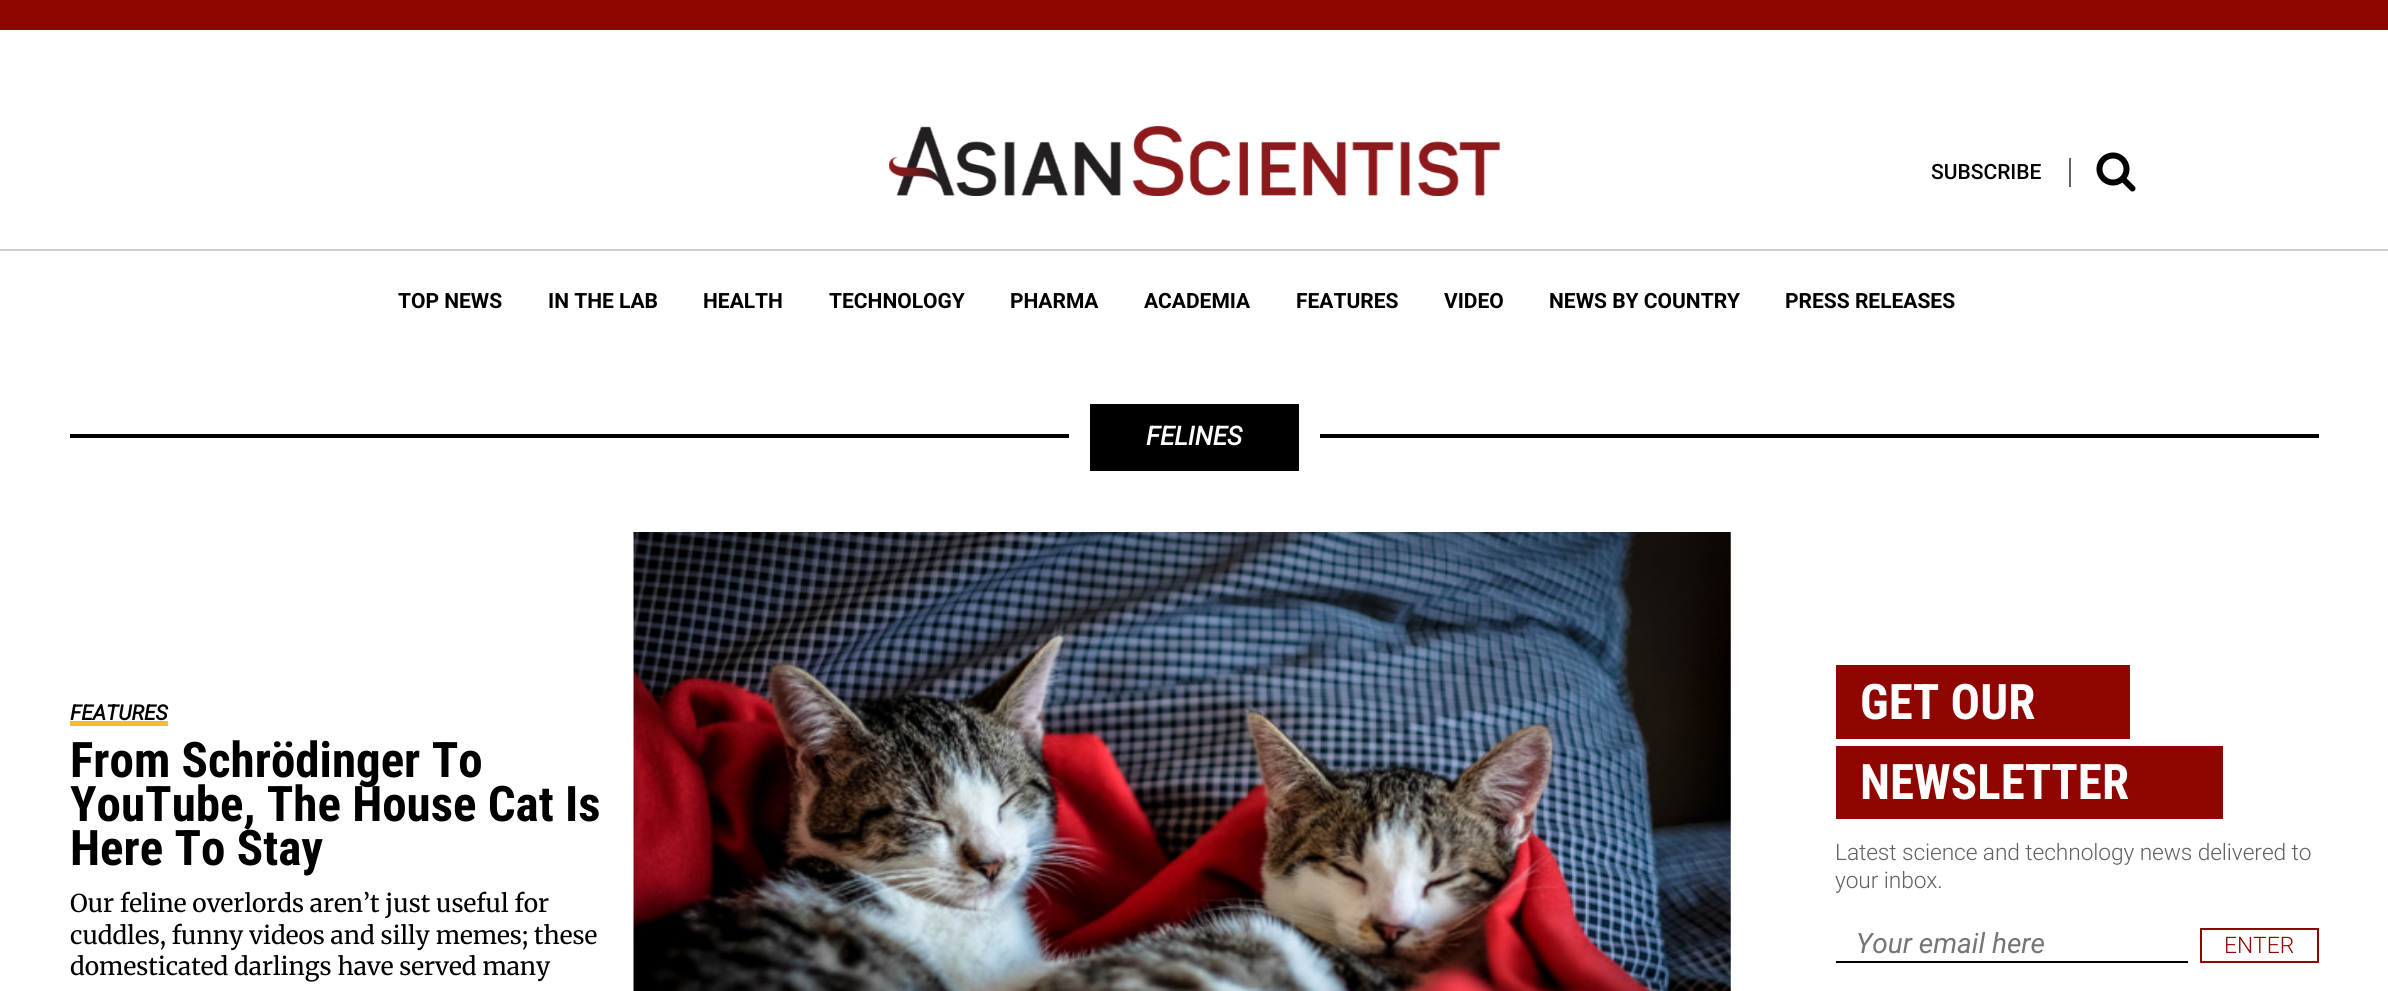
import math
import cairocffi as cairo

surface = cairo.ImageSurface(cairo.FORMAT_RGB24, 2388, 991)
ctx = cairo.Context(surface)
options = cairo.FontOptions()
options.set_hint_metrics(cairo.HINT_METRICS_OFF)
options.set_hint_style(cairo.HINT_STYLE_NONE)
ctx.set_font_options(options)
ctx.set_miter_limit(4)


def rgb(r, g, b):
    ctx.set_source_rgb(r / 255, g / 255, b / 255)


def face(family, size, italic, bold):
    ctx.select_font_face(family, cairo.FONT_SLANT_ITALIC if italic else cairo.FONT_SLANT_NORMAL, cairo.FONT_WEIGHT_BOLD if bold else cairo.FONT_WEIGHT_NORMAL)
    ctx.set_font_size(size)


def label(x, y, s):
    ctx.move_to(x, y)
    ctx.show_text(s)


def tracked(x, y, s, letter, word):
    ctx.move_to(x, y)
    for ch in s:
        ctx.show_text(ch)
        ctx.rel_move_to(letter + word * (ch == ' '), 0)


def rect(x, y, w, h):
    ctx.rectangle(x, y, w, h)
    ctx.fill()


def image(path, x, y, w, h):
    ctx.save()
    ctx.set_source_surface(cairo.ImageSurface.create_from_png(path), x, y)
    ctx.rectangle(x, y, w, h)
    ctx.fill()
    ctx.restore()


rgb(255, 255, 255)
ctx.paint()
rgb(143, 5, 0)
rect(0, 0, 2388, 30)
rgb(204, 204, 204)
rect(0, 249, 2388, 2)
image('image0.png', 888, 126, 613, 70)
rgb(100, 100, 100)
rect(2069, 158, 2, 29)
face('Roboto Medium', 21, 0, 0)
rgb(0, 0, 0)
label(1931, 179, 'SUBSCRIBE')
image('image1.png', 2096, 152, 40, 40)
face('Roboto', 21, 0, 1)
label(398, 308, 'TOP NEWS')
label(548, 308, 'IN THE LAB')
label(703, 308, 'HEALTH')
label(829, 308, 'TECHNOLOGY')
label(1010, 308, 'PHARMA')
label(1144, 308, 'ACADEMIA')
label(1296, 308, 'FEATURES')
label(1444, 308, 'VIDEO')
label(1549, 308, 'NEWS BY COUNTRY')
label(1785, 308, 'PRESS RELEASES')
rect(1090, 404, 209, 67)
rect(70, 434, 999, 4)
face('Roboto', 26, 1, 1)
rgb(255, 255, 255)
label(1146, 445, 'FELINES')
rgb(0, 0, 0)
rect(1320, 434, 999, 4)
face('Roboto', 21, 1, 1)
label(70, 720, 'FEATURES')
rgb(255, 184, 48)
rect(70, 721, 98, 5)
face('Roboto Condensed', 49, 0, 1)
rgb(0, 0, 0)
label(70, 777, 'From Schrödinger To')
label(70, 821, 'YouTube, The House Cat Is')
label(70, 865, 'Here To Stay')
face('Merriweather', 24.5, 0, 0)
label(70, 912, 'Our feline overlords aren’t just useful for')
label(70, 944, 'cuddles, funny videos and silly memes; these')
label(70, 975, 'domesticated darlings have served many')
image('image2.png', 633, 532, 1098, 459)
rgb(143, 5, 0)
rect(1836, 665, 294, 74)
face('Roboto Condensed', 49, 0, 1)
rgb(255, 255, 255)
label(1860, 719, 'GET OUR')
rgb(143, 5, 0)
rect(1836, 746, 387, 73)
rgb(255, 255, 255)
label(1860, 799, 'NEWSLETTER')
face('Roboto Light', 22.75, 0, 0)
rgb(96, 96, 96)
tracked(1835, 860, 'Latest science and technology news delivered to', -0.1, 0)
tracked(1835, 888, 'your inbox.', -0.1, 0)
rgb(0, 0, 0)
rect(1836, 961, 352, 2)
face('Roboto', 28, 1, 0)
rgb(117, 117, 117)
label(1856, 953, 'Your email here')
ctx.rectangle(2201, 929, 117, 33)
rgb(143, 5, 0)
ctx.stroke()
face('Roboto Light', 22.75, 0, 0)
label(2224, 953, 'ENTER')
surface.write_to_png('render.png')
